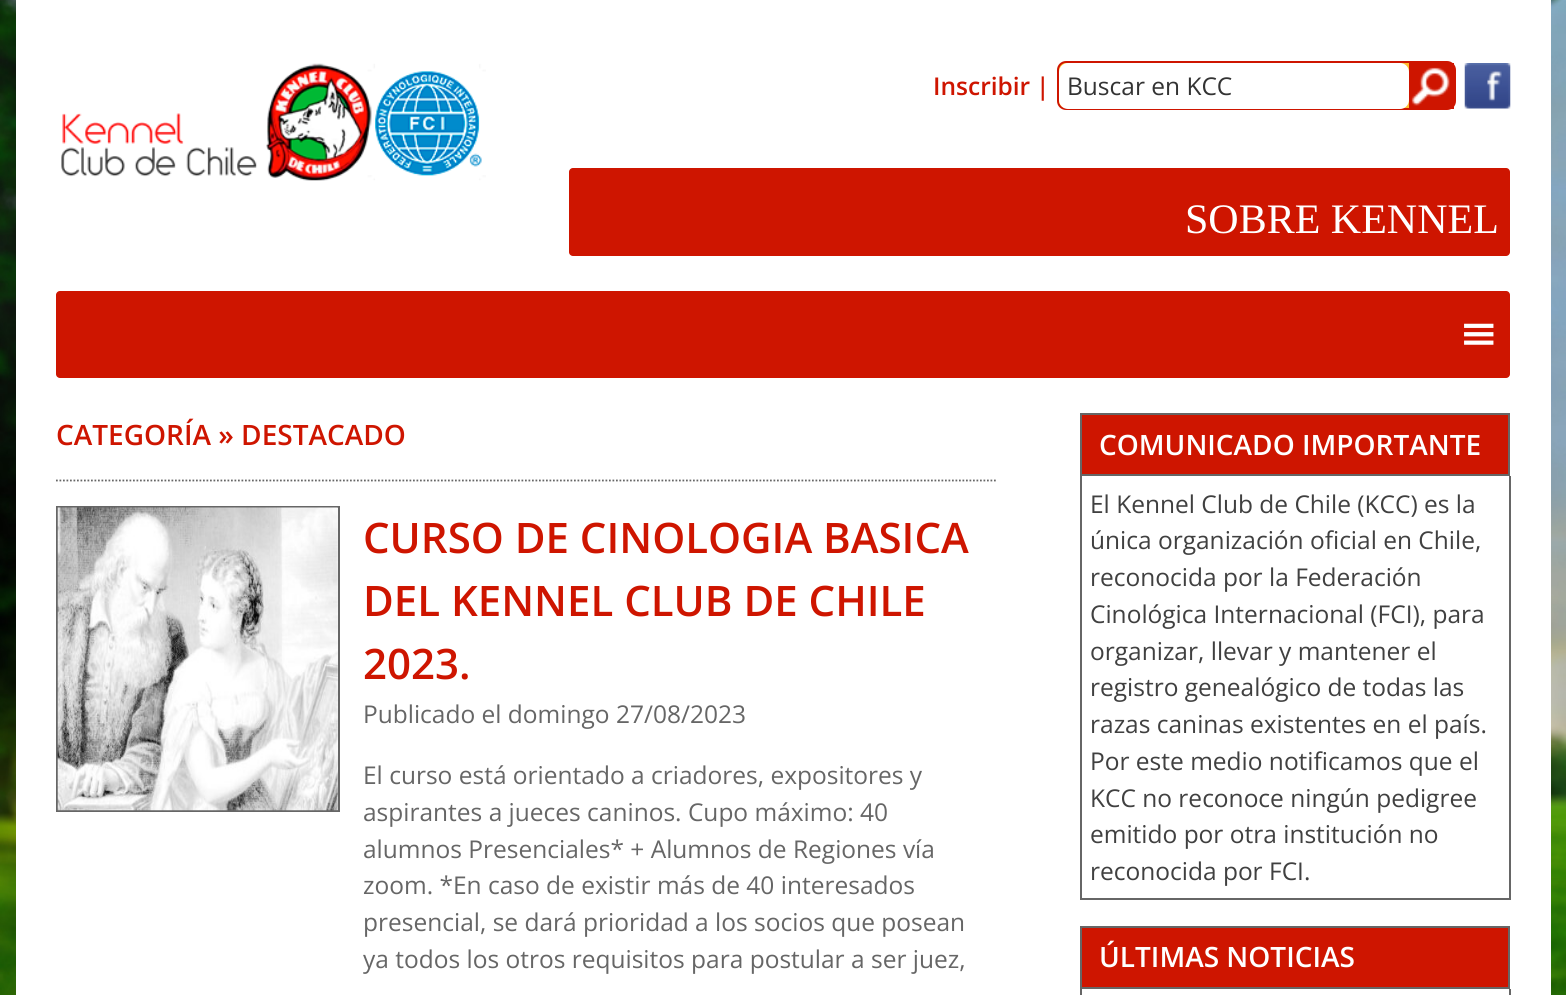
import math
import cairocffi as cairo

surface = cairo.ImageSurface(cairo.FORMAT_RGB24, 1566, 995)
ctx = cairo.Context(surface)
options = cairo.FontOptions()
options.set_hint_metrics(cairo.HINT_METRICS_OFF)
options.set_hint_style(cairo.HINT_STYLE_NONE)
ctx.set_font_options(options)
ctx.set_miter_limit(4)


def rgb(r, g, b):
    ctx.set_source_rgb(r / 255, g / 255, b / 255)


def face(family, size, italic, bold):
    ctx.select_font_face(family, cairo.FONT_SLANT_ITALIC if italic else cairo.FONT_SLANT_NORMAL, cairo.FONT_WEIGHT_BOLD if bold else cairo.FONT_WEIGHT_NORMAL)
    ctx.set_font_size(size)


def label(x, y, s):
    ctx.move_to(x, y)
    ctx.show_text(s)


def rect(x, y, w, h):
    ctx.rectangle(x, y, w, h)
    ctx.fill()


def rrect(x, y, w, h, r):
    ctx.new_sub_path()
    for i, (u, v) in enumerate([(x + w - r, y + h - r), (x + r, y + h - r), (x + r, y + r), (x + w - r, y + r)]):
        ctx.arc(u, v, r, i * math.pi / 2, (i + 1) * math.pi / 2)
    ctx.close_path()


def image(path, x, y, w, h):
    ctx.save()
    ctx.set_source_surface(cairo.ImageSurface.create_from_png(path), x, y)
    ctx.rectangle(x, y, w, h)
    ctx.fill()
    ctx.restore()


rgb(255, 255, 255)
ctx.paint()
image('image0.png', 0, 0, 1566, 995)
rgb(255, 255, 255)
rect(16, 0, 1535, 995)
image('image1.png', 61, 63, 425, 118)
face('Open Sans SemiBold', 24.5, 0, 0)
rgb(206, 21, 0)
label(933, 95, 'Inscribir')
label(1036, 95, '|')
rgb(254, 188, 49)
rrect(1058, 62, 397, 47, 8)
ctx.fill_preserve()
rgb(206, 21, 0)
ctx.stroke()
rgb(255, 255, 255)
rrect(1059, 63, 350, 46, 9)
ctx.fill()
face('Open Sans', 24.5, 0, 0)
rgb(51, 51, 51)
label(1067, 95, 'Buscar en KCC')
rgb(206, 21, 0)
rect(1409, 63, 45, 46)
image('image2.png', 1411, 67, 39, 39)
image('image3.png', 1464, 63, 47, 46)
rrect(569, 168, 941, 88, 4)
ctx.fill()
face('Liberation Serif', 42, 0, 0)
rgb(255, 255, 255)
label(1185, 233, 'SOBRE KENNEL')
rgb(206, 21, 0)
rrect(56, 291, 1454, 87, 4)
ctx.fill()
image('image4.png', 1464, 323, 30, 22)
face('Open Sans SemiBold', 28, 0, 0)
label(56, 445, 'CATEGORÍA » DESTACADO')
ctx.new_path()
ctx.move_to(56, 480.5)
ctx.line_to(997.5, 480.5)
rgb(102, 102, 102)
ctx.set_line_width(1.8)
ctx.set_dash([1.75, 1.75])
ctx.stroke()
ctx.rectangle(57, 507, 282, 304)
ctx.set_line_width(2)
ctx.set_dash([])
ctx.stroke()
image('image5.png', 57, 507, 281, 304)
face('Open Sans SemiBold', 42, 0, 0)
rgb(206, 21, 0)
label(363, 553, 'CURSO DE CINOLOGIA BASICA')
label(363, 616, 'DEL KENNEL CLUB DE CHILE')
label(363, 679, '2023.')
face('Open Sans', 24.5, 0, 0)
rgb(102, 102, 102)
label(363, 723, 'Publicado el domingo 27/08/2023')
label(363, 784, 'El curso está orientado a criadores, expositores y')
label(363, 821, 'aspirantes a jueces caninos. Cupo máximo: 40')
label(363, 858, 'alumnos Presenciales* + Alumnos de Regiones vía')
label(363, 894, 'zoom. *En caso de existir más de 40 interesados')
label(363, 931, 'presencial, se dará prioridad a los socios que posean')
label(363, 968, 'ya todos los otros requisitos para postular a ser juez,')
rgb(206, 21, 0)
ctx.rectangle(1081, 414, 428, 61)
ctx.fill_preserve()
rgb(102, 102, 102)
ctx.stroke()
face('Open Sans SemiBold', 28, 0, 0)
rgb(255, 255, 255)
label(1099, 455, 'COMUNICADO IMPORTANTE')
rgb(102, 102, 102)
rect(1509, 476, 2, 424)
rect(1080, 898, 430, 2)
rect(1080, 476, 2, 424)
face('Open Sans', 24.5, 0, 0)
rgb(64, 64, 64)
label(1090, 513, 'El Kennel Club de Chile (KCC) es la')
label(1090, 549, 'única organización oficial en Chile,')
label(1090, 586, 'reconocida por la Federación')
label(1090, 623, 'Cinológica Internacional (FCI), para')
label(1090, 660, 'organizar, llevar y mantener el')
label(1090, 696, 'registro genealógico de todas las')
label(1090, 733, 'razas caninas existentes en el país.')
label(1090, 770, 'Por este medio notificamos que el')
label(1090, 807, 'KCC no reconoce ningún pedigree')
label(1090, 843, 'emitido por otra institución no')
label(1090, 880, 'reconocida por FCI.')
rgb(206, 21, 0)
ctx.rectangle(1081, 927, 428, 61)
ctx.fill_preserve()
rgb(102, 102, 102)
ctx.stroke()
face('Open Sans SemiBold', 28, 0, 0)
rgb(255, 255, 255)
label(1099, 967, 'ÚLTIMAS NOTICIAS')
rgb(102, 102, 102)
rect(1509, 989, 2, 6)
rect(1080, 989, 2, 6)
surface.write_to_png('render.png')
